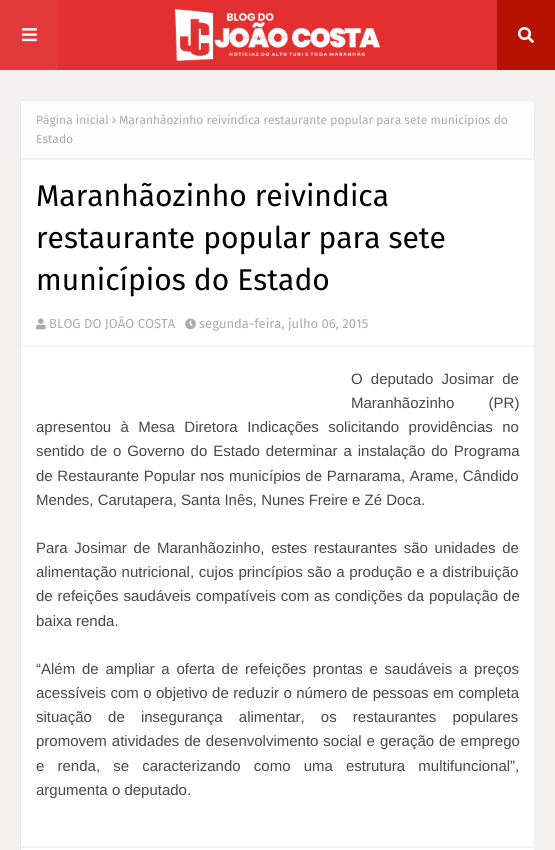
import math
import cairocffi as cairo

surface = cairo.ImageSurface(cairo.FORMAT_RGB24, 555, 850)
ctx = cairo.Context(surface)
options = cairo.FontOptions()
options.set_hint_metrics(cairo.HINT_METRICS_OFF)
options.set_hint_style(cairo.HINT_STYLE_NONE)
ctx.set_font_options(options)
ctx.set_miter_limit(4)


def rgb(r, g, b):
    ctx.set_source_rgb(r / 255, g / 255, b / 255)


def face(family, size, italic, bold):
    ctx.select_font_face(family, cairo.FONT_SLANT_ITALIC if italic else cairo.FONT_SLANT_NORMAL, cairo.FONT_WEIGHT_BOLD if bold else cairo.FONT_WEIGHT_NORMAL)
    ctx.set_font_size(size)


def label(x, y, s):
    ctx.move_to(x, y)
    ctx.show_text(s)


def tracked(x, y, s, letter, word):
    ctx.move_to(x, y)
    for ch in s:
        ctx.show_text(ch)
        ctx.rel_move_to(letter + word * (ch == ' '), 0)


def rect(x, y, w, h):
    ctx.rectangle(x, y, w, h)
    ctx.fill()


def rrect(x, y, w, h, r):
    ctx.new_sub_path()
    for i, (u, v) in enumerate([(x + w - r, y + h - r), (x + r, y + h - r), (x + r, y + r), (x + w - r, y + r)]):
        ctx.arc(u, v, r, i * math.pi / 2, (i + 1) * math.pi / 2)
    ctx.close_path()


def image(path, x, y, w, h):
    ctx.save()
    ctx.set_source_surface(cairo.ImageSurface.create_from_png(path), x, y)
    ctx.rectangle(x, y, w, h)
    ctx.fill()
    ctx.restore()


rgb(244, 241, 241)
ctx.paint()
rgb(227, 47, 48)
rect(58, 0, 439, 70)
rgb(228, 57, 58)
rect(0, 0, 58, 70)
image('image0.png', 22, 28, 15, 14)
image('image1.png', 175, 9, 205, 52)
rgb(181, 18, 0)
rect(497, 0, 58, 70)
image('image2.png', 518, 27, 16, 16)
rgb(255, 255, 255)
rrect(20.5, 100.5, 514, 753, 2.5)
ctx.fill_preserve()
rgb(235, 235, 243)
ctx.set_line_width(1)
ctx.stroke()
rgb(253, 253, 255)
ctx.new_path()
ctx.move_to(23, 101)
ctx.line_to(532, 101)
ctx.curve_to(533, 101, 534, 102, 534, 103)
ctx.line_to(534, 160)
ctx.line_to(21, 160)
ctx.line_to(21, 103)
ctx.curve_to(21, 102, 22, 101, 23, 101)
ctx.close_path()
ctx.fill()
rgb(242, 242, 246)
rect(21, 158, 513, 2)
face('Fira Sans', 12, 0, 0)
rgb(170, 170, 170)
label(36, 124, 'Página inicial')
image('image3.png', 112, 117, 4, 7)
label(119, 124, 'Maranhãozinho reivindica restaurante popular para sete municípios do')
label(36, 143, 'Estado')
face('Fira Sans', 30, 0, 0)
rgb(0, 0, 0)
label(36, 206, 'Maranhãozinho reivindica')
label(36, 248, 'restaurante popular para sete')
label(36, 290, 'municípios do Estado')
image('image4.png', 36, 318, 10, 12)
face('Fira Sans', 13, 0, 0)
rgb(170, 170, 170)
label(49, 328, 'BLOG DO JOÃO COSTA')
image('image5.png', 185, 318, 11, 12)
label(199, 328, 'segunda-feira, julho 06, 2015')
rgb(242, 242, 246)
rect(21, 346, 513, 1)
face('Liberation Sans', 15, 0, 0)
rgb(71, 71, 71)
tracked(351, 384, 'O deputado Josimar de', 0, 4)
tracked(351, 408, 'Maranhãozinho (PR)', 0, 30)
tracked(36, 432, 'apresentou à Mesa Diretora Indicações solicitando providências no', 0, 5.25)
tracked(36, 456, 'sentido de o Governo do Estado determinar a instalação do Programa', 0, 1.75)
tracked(36, 481, 'de Restaurante Popular nos municípios de Parnarama, Arame, Cândido', 0, 0.5)
label(36, 505, 'Mendes, Carutapera, Santa Inês, Nunes Freire e Zé Doca.')
tracked(36, 553, 'Para Josimar de Maranhãozinho, estes restaurantes são unidades de', 0, 2.5)
tracked(36, 577, 'alimentação nutricional, cujos princípios são a produção e a distribuição', 0, 0.5)
tracked(36, 601, 'de refeições saudáveis compatíveis com as condições da população de', 0, 0.75)
label(36, 626, 'baixa renda.')
tracked(36, 674, '“Além de ampliar a oferta de refeições prontas e saudáveis a preços', 0, 2.6)
tracked(36, 698, 'acessíveis com o objetivo de reduzir o número de pessoas em completa', 0, 0.25)
tracked(36, 722, 'situação de insegurança alimentar, os restaurantes populares', 0, 12)
tracked(36, 746, 'promovem atividades de desenvolvimento social e geração de emprego', 0, 0.75)
tracked(36, 771, 'e renda, se caracterizando como uma estrutura multifuncional”,', 0, 9)
label(36, 795, 'argumenta o deputado.')
rgb(242, 242, 246)
rect(21, 846, 513, 2)
surface.write_to_png('render.png')
